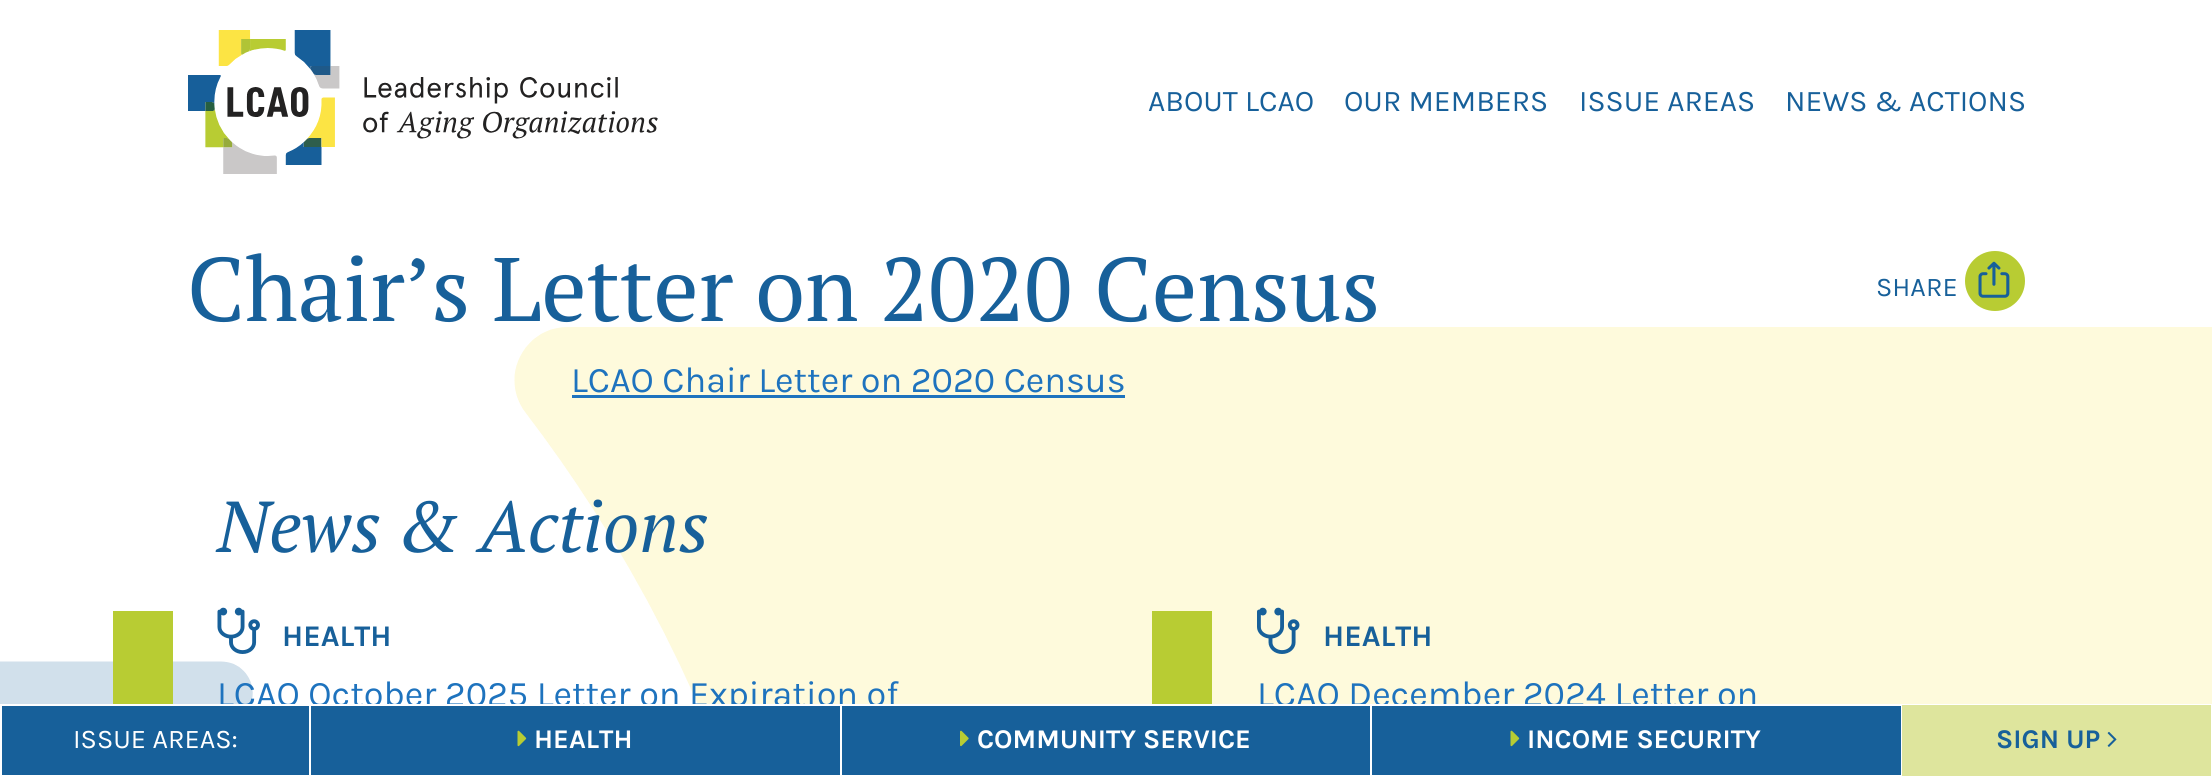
import math
import cairocffi as cairo

surface = cairo.ImageSurface(cairo.FORMAT_RGB24, 2212, 776)
ctx = cairo.Context(surface)
options = cairo.FontOptions()
options.set_hint_metrics(cairo.HINT_METRICS_OFF)
options.set_hint_style(cairo.HINT_STYLE_NONE)
ctx.set_font_options(options)
ctx.set_miter_limit(4)


def rgb(r, g, b):
    ctx.set_source_rgb(r / 255, g / 255, b / 255)


def face(family, size, italic, bold):
    ctx.select_font_face(family, cairo.FONT_SLANT_ITALIC if italic else cairo.FONT_SLANT_NORMAL, cairo.FONT_WEIGHT_BOLD if bold else cairo.FONT_WEIGHT_NORMAL)
    ctx.set_font_size(size)


def label(x, y, s):
    ctx.move_to(x, y)
    ctx.show_text(s)


def rect(x, y, w, h):
    ctx.rectangle(x, y, w, h)
    ctx.fill()


def image(path, x, y, w, h):
    ctx.save()
    ctx.set_source_surface(cairo.ImageSurface.create_from_png(path), x, y)
    ctx.rectangle(x, y, w, h)
    ctx.fill()
    ctx.restore()


rgb(255, 255, 255)
ctx.paint()
image('image0.png', 188, 30, 470, 144)
face('Karla', 30, 0, 0)
rgb(23, 96, 154)
label(1148, 111, 'ABOUT LCAO')
label(1344, 111, 'OUR MEMBERS')
label(1579, 111, 'ISSUE AREAS')
label(1785, 111, 'NEWS & ACTIONS')
face('PT Serif', 90, 0, 0)
label(187, 321, 'Chair’s Letter on 2020 Census')
face('Karla', 27, 0, 0)
label(1876, 296, 'SHARE')
rgb(184, 204, 51)
ctx.new_path()
ctx.arc(1995, 281, 30, 0, 2 * math.pi)
ctx.fill()
image('image1.png', 1978, 261, 32, 37)
image('image5.png', 514, 327, 1698, 377)
face('Karla', 36, 0, 0)
rgb(30, 115, 190)
label(571, 392, 'LCAO Chair Letter on 2020 Census')
rect(572, 395, 553, 3)
face('PT Serif', 72, 1, 0)
rgb(23, 96, 154)
label(217, 552, 'News & Actions')
image('image4.png', 0, 661, 253, 43)
rgb(184, 204, 51)
rect(113, 611, 60, 93)
image('image2.png', 217, 607, 43, 47)
face('Karla', 30, 0, 1)
rgb(23, 96, 154)
label(282, 646, 'HEALTH')
face('Karla', 36, 0, 0)
rgb(30, 115, 190)
label(217, 706, 'LCAO October 2025 Letter on Expiration of')
rgb(184, 204, 51)
rect(1152, 611, 60, 93)
image('image3.png', 1257, 607, 43, 47)
face('Karla', 30, 0, 1)
rgb(23, 96, 154)
label(1323, 646, 'HEALTH')
face('Karla', 36, 0, 0)
rgb(30, 115, 190)
label(1257, 706, 'LCAO December 2024 Letter on')
rgb(23, 96, 154)
rect(2, 706, 1899, 69)
ctx.rectangle(1, 705, 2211, 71)
rgb(255, 255, 255)
ctx.stroke()
rect(309, 705, 2, 71)
face('Karla', 27, 0, 0)
label(73, 748, 'ISSUE AREAS:')
rect(840, 705, 2, 71)
image('image6.png', 517, 730, 10, 17)
face('Karla', 27, 0, 1)
label(534, 748, 'HEALTH')
rect(1370, 705, 2, 71)
image('image7.png', 960, 730, 9, 17)
label(977, 748, 'COMMUNITY SERVICE')
image('image6.png', 1510, 730, 10, 17)
label(1527, 748, 'INCOME SECURITY')
rgb(222, 229, 157)
rect(1902, 705, 309, 71)
rgb(23, 96, 154)
label(1996, 748, 'SIGN UP')
image('image8.png', 2107, 731, 10, 16)
surface.write_to_png('render.png')
